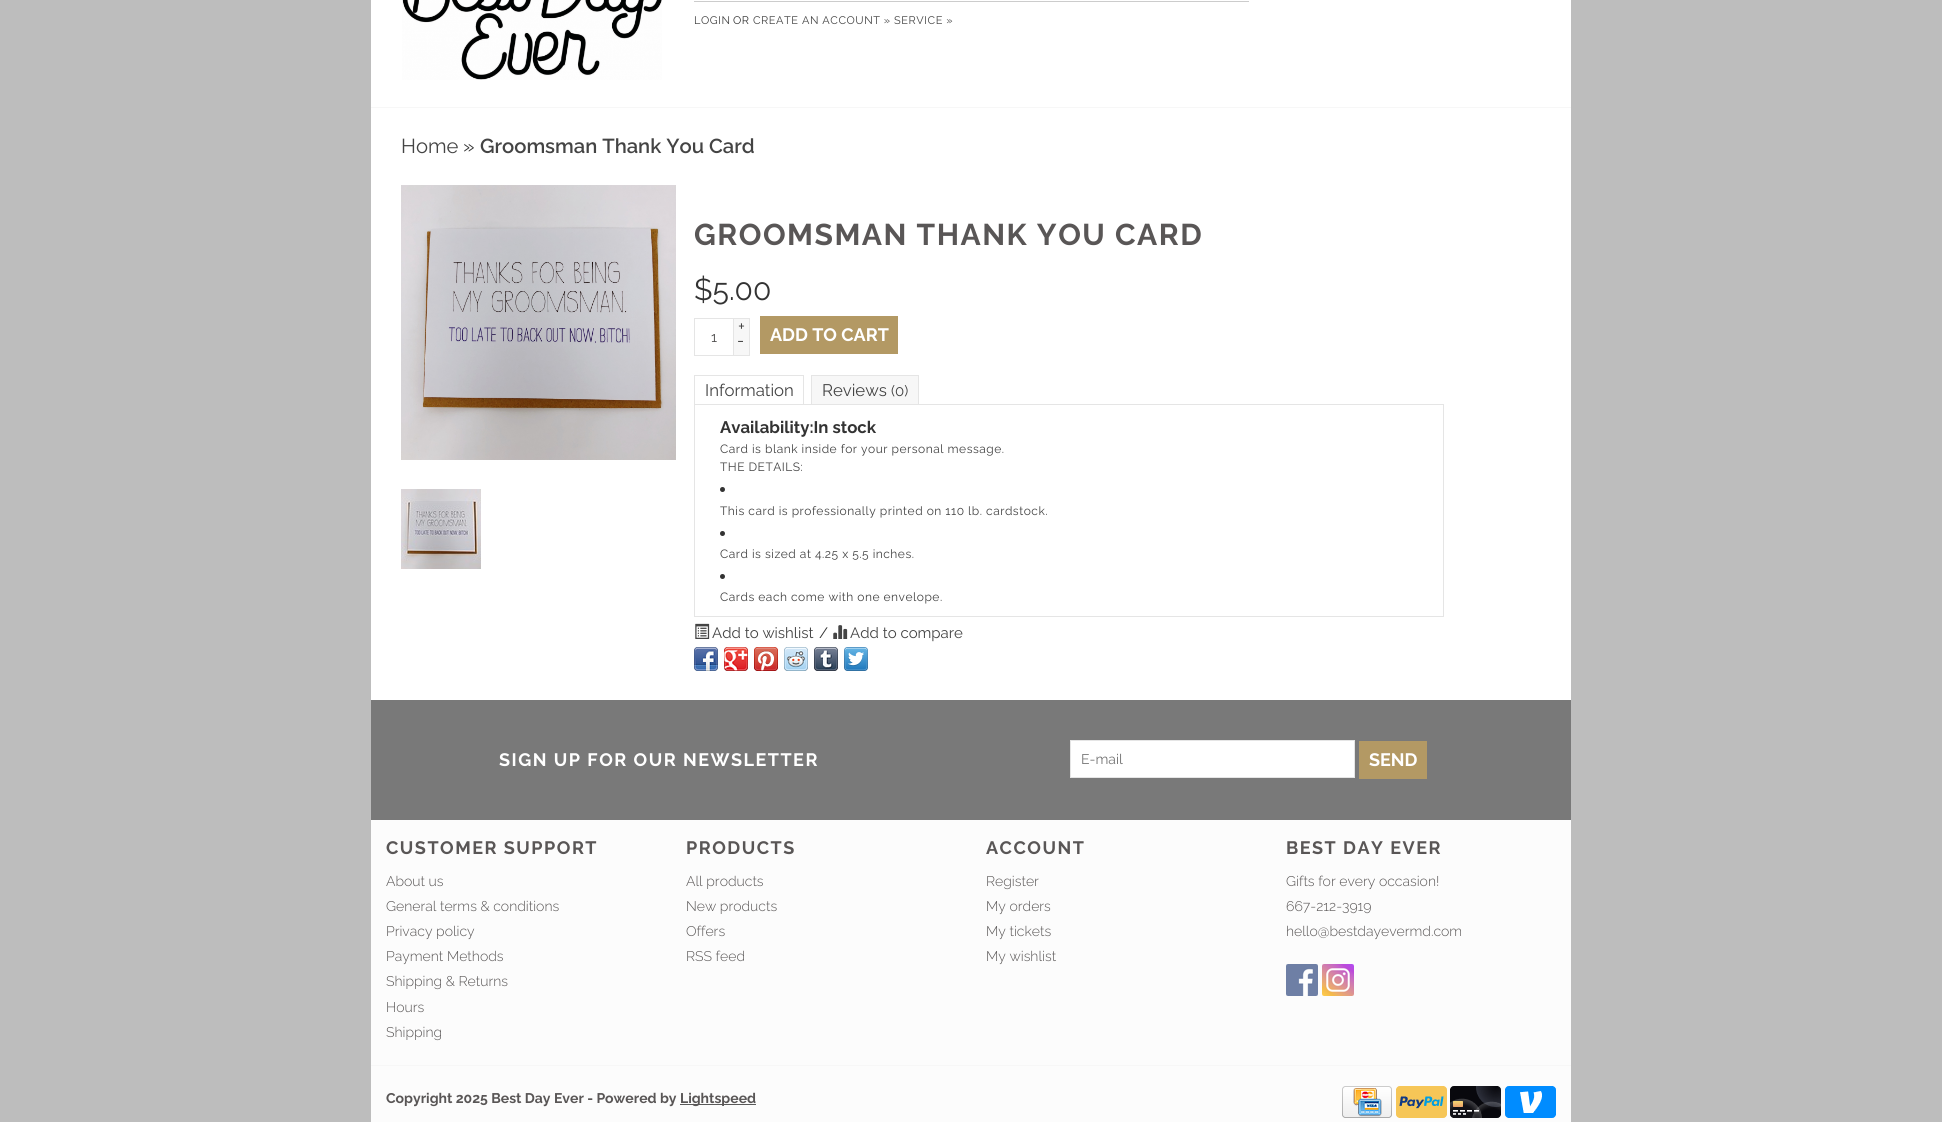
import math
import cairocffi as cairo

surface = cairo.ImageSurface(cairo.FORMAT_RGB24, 1942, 1122)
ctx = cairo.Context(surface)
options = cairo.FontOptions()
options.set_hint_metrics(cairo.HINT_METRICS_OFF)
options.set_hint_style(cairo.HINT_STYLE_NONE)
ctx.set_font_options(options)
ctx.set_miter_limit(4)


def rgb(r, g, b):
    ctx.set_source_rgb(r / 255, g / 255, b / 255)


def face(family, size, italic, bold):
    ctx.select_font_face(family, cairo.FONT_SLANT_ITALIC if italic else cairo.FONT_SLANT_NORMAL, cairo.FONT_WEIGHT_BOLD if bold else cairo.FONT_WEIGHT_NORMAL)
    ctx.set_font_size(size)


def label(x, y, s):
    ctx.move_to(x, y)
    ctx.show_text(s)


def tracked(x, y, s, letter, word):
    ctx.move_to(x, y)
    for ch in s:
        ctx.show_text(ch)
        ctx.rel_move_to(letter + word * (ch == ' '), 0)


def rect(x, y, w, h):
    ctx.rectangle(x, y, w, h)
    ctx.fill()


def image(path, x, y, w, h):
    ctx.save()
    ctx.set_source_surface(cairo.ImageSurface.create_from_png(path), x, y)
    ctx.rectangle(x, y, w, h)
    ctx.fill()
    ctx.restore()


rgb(189, 189, 189)
ctx.paint()
rgb(255, 255, 255)
rect(371, 0, 1200, 107)
rgb(247, 247, 247)
rect(371, 107, 1200, 1)
image('image0.png', 402, 0, 260, 80)
rgb(204, 204, 204)
rect(694, 1, 555, 1)
face('Raleway', 11, 0, 0)
rgb(68, 68, 68)
tracked(694, 24, 'LOGIN', 0.55, 0)
rgb(51, 51, 51)
tracked(733, 24, 'OR', 0.55, 0)
rgb(68, 68, 68)
tracked(753, 24, 'CREATE AN ACCOUNT » SERVICE »', 0.55, 0)
rgb(255, 255, 255)
rect(371, 108, 1200, 592)
face('Raleway', 20.2, 0, 0)
rgb(68, 68, 68)
label(401, 153, 'Home')
rgb(51, 51, 51)
label(463, 153, '»')
face('Raleway SemiBold', 20.2, 0, 0)
rgb(68, 68, 68)
label(480, 153, 'Groomsman Thank You Card')
image('image1.png', 401, 185, 275, 275)
image('image2.png', 401, 489, 80, 80)
face('Raleway', 30, 0, 1)
rgb(89, 86, 86)
tracked(694, 245, 'GROOMSMAN THANK YOU CARD', 1.5, 0)
face('Raleway', 30, 0, 0)
rgb(51, 51, 51)
label(694, 300, '$5.00')
ctx.rectangle(694.5, 318.5, 39, 37)
rgb(229, 229, 229)
ctx.set_line_width(1)
ctx.stroke()
face('Raleway', 14, 0, 0)
rgb(81, 80, 80)
label(711, 342, '1')
rgb(247, 247, 247)
rect(734, 319, 15, 36)
rgb(229, 229, 229)
rect(734, 318, 16, 1)
rect(749, 318, 1, 38)
rect(734, 355, 16, 1)
face('Raleway', 16.75, 0, 0)
rgb(68, 68, 68)
label(738, 332, '+')
label(737, 346, '-')
rgb(179, 153, 100)
rect(760, 316, 138, 38)
face('Raleway', 18, 0, 1)
rgb(255, 255, 255)
label(770, 341, 'ADD TO CART')
rgb(229, 229, 229)
rect(694, 375, 110, 1)
rect(803, 375, 1, 30)
rect(694, 375, 1, 30)
face('Raleway', 16.75, 0, 0)
rgb(68, 68, 68)
label(705, 396, 'Information')
rgb(247, 247, 247)
rect(812, 376, 106, 28)
rgb(229, 229, 229)
rect(811, 375, 108, 1)
rect(918, 375, 1, 30)
rect(811, 375, 1, 30)
rgb(68, 68, 68)
label(822, 396, 'Reviews')
face('Raleway', 15, 0, 0)
label(891, 396, '(0)')
ctx.rectangle(694.5, 404.5, 749, 212)
rgb(229, 229, 229)
ctx.stroke()
face('Raleway', 16.75, 0, 1)
rgb(51, 51, 51)
label(720, 433, 'Availability:In stock')
face('Raleway', 12, 0, 0)
rgb(68, 68, 68)
tracked(720, 453, 'Card is blank inside for your personal message.', 0.5, 0)
tracked(720, 471, 'THE DETAILS:', 0.5, 0)
rgb(51, 51, 51)
ctx.new_path()
ctx.arc(722.5, 489.5, 2.5, 0, 2 * math.pi)
ctx.fill()
rgb(68, 68, 68)
tracked(720, 515, 'This card is professionally printed on 110 lb. cardstock.', 0.5, 0)
rgb(51, 51, 51)
ctx.new_path()
ctx.arc(722.5, 533.5, 2.5, 0, 2 * math.pi)
ctx.fill()
rgb(68, 68, 68)
tracked(720, 558, 'Card is sized at 4.25 x 5.5 inches.', 0.5, 0)
rgb(51, 51, 51)
ctx.new_path()
ctx.arc(722.5, 576.5, 2.5, 0, 2 * math.pi)
ctx.fill()
rgb(68, 68, 68)
tracked(720, 601, 'Cards each come with one envelope.', 0.5, 0)
image('image3.png', 695, 623, 15, 16)
face('Raleway', 15, 0, 0)
label(712, 638, 'Add to wishlist')
rgb(51, 51, 51)
label(819, 638, '/')
image('image4.png', 833, 625, 15, 14)
rgb(68, 68, 68)
label(850, 638, 'Add to compare')
image('image5.png', 694, 647, 24, 24)
image('image6.png', 724, 647, 24, 24)
image('image7.png', 754, 647, 24, 24)
image('image8.png', 784, 647, 24, 24)
image('image9.png', 814, 647, 24, 24)
image('image10.png', 844, 647, 24, 24)
rgb(121, 121, 121)
rect(371, 700, 1200, 120)
face('Raleway', 18, 0, 1)
rgb(255, 255, 255)
tracked(499, 766, 'SIGN UP FOR OUR NEWSLETTER', 1.5, 0)
ctx.rectangle(1070.5, 740.5, 284, 37)
ctx.fill_preserve()
rgb(229, 229, 229)
ctx.stroke()
face('Raleway', 14, 0, 0)
rgb(117, 117, 117)
label(1081, 764, 'E-mail')
rgb(179, 153, 100)
rect(1359, 741, 68, 38)
face('Raleway', 18, 0, 1)
rgb(255, 255, 255)
label(1369, 766, 'SEND')
rgb(252, 252, 252)
rect(371, 820, 1200, 302)
rgb(89, 86, 86)
tracked(386, 854, 'CUSTOMER SUPPORT', 1.5, 0)
face('Raleway Light', 14, 0, 0)
label(386, 886, 'About us')
label(386, 911, 'General terms & conditions')
label(386, 936, 'Privacy policy')
label(386, 961, 'Payment Methods')
label(386, 986, 'Shipping & Returns')
label(386, 1012, 'Hours')
label(386, 1037, 'Shipping')
face('Raleway', 18, 0, 1)
tracked(686, 854, 'PRODUCTS', 1.5, 0)
face('Raleway Light', 14, 0, 0)
label(686, 886, 'All products')
label(686, 911, 'New products')
label(686, 936, 'Offers')
label(686, 961, 'RSS feed')
face('Raleway', 18, 0, 1)
tracked(986, 854, 'ACCOUNT', 1.5, 0)
face('Raleway Light', 14, 0, 0)
label(986, 886, 'Register')
label(986, 911, 'My orders')
label(986, 936, 'My tickets')
label(986, 961, 'My wishlist')
face('Raleway', 18, 0, 1)
tracked(1286, 854, 'BEST DAY EVER', 1.5, 0)
face('Raleway Light', 14, 0, 0)
label(1286, 886, 'Gifts for every occasion!')
label(1286, 911, '667-212-3919')
label(1286, 936, 'hello@bestdayevermd.com')
image('image11.png', 1286, 964, 32, 32)
image('image12.png', 1322, 964, 32, 32)
rgb(247, 247, 247)
rect(371, 1065, 1200, 1)
face('Raleway', 14, 0, 1)
rgb(89, 86, 86)
label(386, 1103, 'Copyright 2025 Best Day Ever - Powered by')
rgb(89, 89, 89)
rect(680, 1104, 76, 1)
rgb(89, 86, 86)
label(680, 1103, 'Lightspeed')
image('image13.png', 1342, 1086, 50, 32)
image('image14.png', 1396, 1086, 51, 32)
image('image15.png', 1450, 1086, 51, 32)
image('image16.png', 1505, 1086, 51, 32)
surface.write_to_png('render.png')
